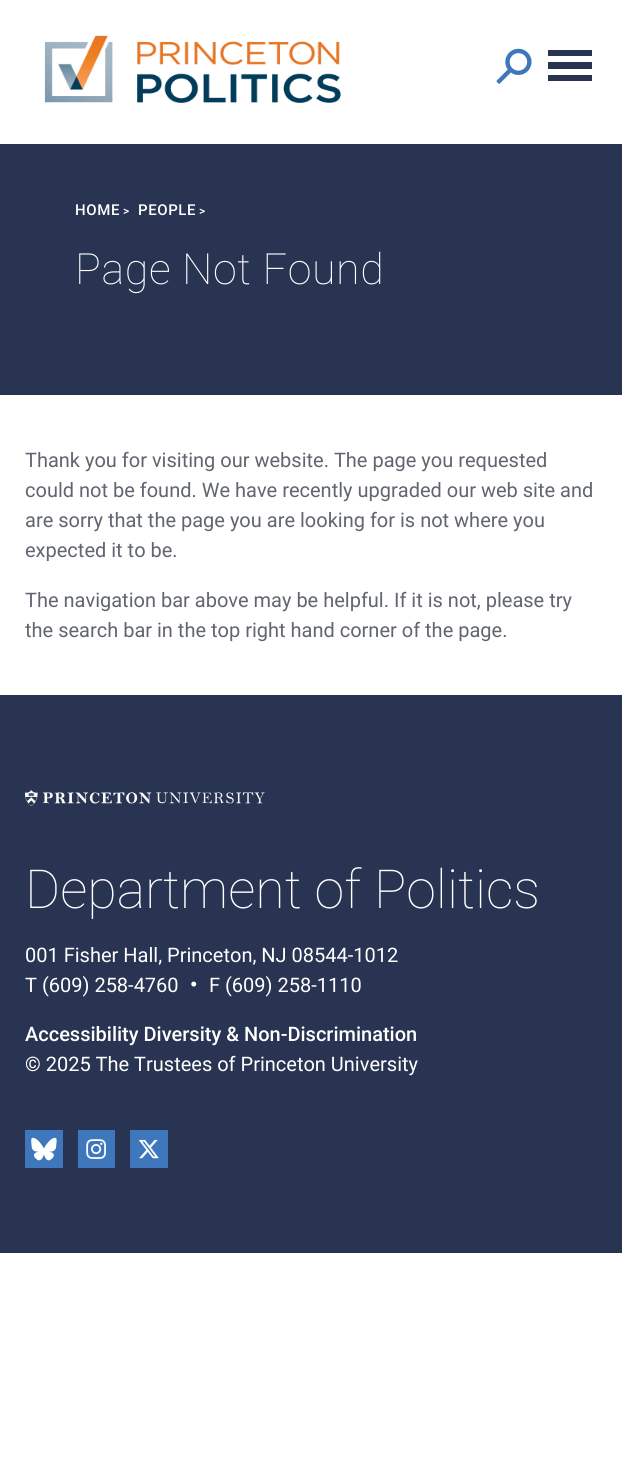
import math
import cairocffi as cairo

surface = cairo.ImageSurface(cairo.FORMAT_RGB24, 622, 1474)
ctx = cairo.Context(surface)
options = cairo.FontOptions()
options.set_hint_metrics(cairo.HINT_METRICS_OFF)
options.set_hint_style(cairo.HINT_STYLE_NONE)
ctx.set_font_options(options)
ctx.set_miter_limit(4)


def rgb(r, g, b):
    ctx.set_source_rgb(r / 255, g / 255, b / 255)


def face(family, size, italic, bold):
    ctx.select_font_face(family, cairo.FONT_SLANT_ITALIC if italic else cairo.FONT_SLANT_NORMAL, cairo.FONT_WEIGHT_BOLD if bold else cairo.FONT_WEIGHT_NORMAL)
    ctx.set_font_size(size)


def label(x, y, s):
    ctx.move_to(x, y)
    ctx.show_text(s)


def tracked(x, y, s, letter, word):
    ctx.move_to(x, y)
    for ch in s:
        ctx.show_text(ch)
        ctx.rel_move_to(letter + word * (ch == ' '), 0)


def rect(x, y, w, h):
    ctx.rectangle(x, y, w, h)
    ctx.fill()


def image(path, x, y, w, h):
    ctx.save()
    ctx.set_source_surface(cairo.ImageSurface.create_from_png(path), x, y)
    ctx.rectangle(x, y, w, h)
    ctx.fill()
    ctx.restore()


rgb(255, 255, 255)
ctx.paint()
image('image0.png', 44, 35, 297, 68)
image('image1.png', 496, 48, 36, 36)
rgb(41, 51, 82)
ctx.new_path()
ctx.move_to(548, 50)
ctx.line_to(592, 50)
ctx.line_to(592, 56)
ctx.line_to(548, 56)
ctx.close_path()
ctx.move_to(548, 62)
ctx.line_to(592, 62)
ctx.line_to(592, 69)
ctx.line_to(548, 69)
ctx.close_path()
ctx.move_to(548, 75)
ctx.line_to(592, 75)
ctx.line_to(592, 81)
ctx.line_to(548, 81)
ctx.close_path()
ctx.fill()
rect(0, 144, 622, 251)
face('Roboto Medium', 15, 0, 0)
rgb(255, 255, 255)
tracked(75, 215, 'HOME', 0.6, 0)
face('Roboto Medium', 12, 0, 0)
tracked(123, 215, '>', 0.6, 0)
face('Roboto Medium', 15, 0, 0)
tracked(138, 215, 'PEOPLE', 0.6, 0)
face('Roboto Medium', 12, 0, 0)
tracked(199, 215, '>', 0.6, 0)
face('Roboto Thin', 43, 0, 0)
tracked(75, 284, 'Page Not Found', 0.6, 0)
face('Roboto', 20, 0, 0)
rgb(97, 101, 112)
label(25, 467, 'Thank you for visiting our website. The page you requested')
label(25, 497, 'could not be found. We have recently upgraded our web site and')
label(25, 527, 'are sorry that the page you are looking for is not where you')
label(25, 557, 'expected it to be.')
label(25, 607, 'The navigation bar above may be helpful. If it is not, please try')
label(25, 637, 'the search bar in the top right hand corner of the page.')
rgb(41, 51, 82)
rect(0, 695, 622, 558)
image('image2.png', 25, 790, 240, 16)
face('Roboto Thin', 53.75, 0, 0)
rgb(255, 255, 255)
label(25, 908, 'Department of Politics')
face('Roboto', 20, 0, 0)
label(25, 962, '001 Fisher Hall, Princeton, NJ 08544-1012')
label(25, 992, 'T (609) 258-4760')
image('image3.png', 191, 981, 6, 6)
label(209, 992, 'F (609) 258-1110')
face('Roboto Medium', 20, 0, 0)
label(25, 1041, 'Accessibility Diversity & Non-Discrimination')
face('Roboto', 20, 0, 0)
label(25, 1071, '© 2025 The Trustees of Princeton University')
rgb(62, 119, 187)
rect(25, 1130, 38, 38)
image('image4.png', 31, 1137, 26, 24)
rect(78, 1130, 37, 38)
image('image5.png', 86, 1139, 20, 20)
rect(130, 1130, 38, 38)
image('image6.png', 138, 1139, 21, 20)
surface.write_to_png('render.png')
